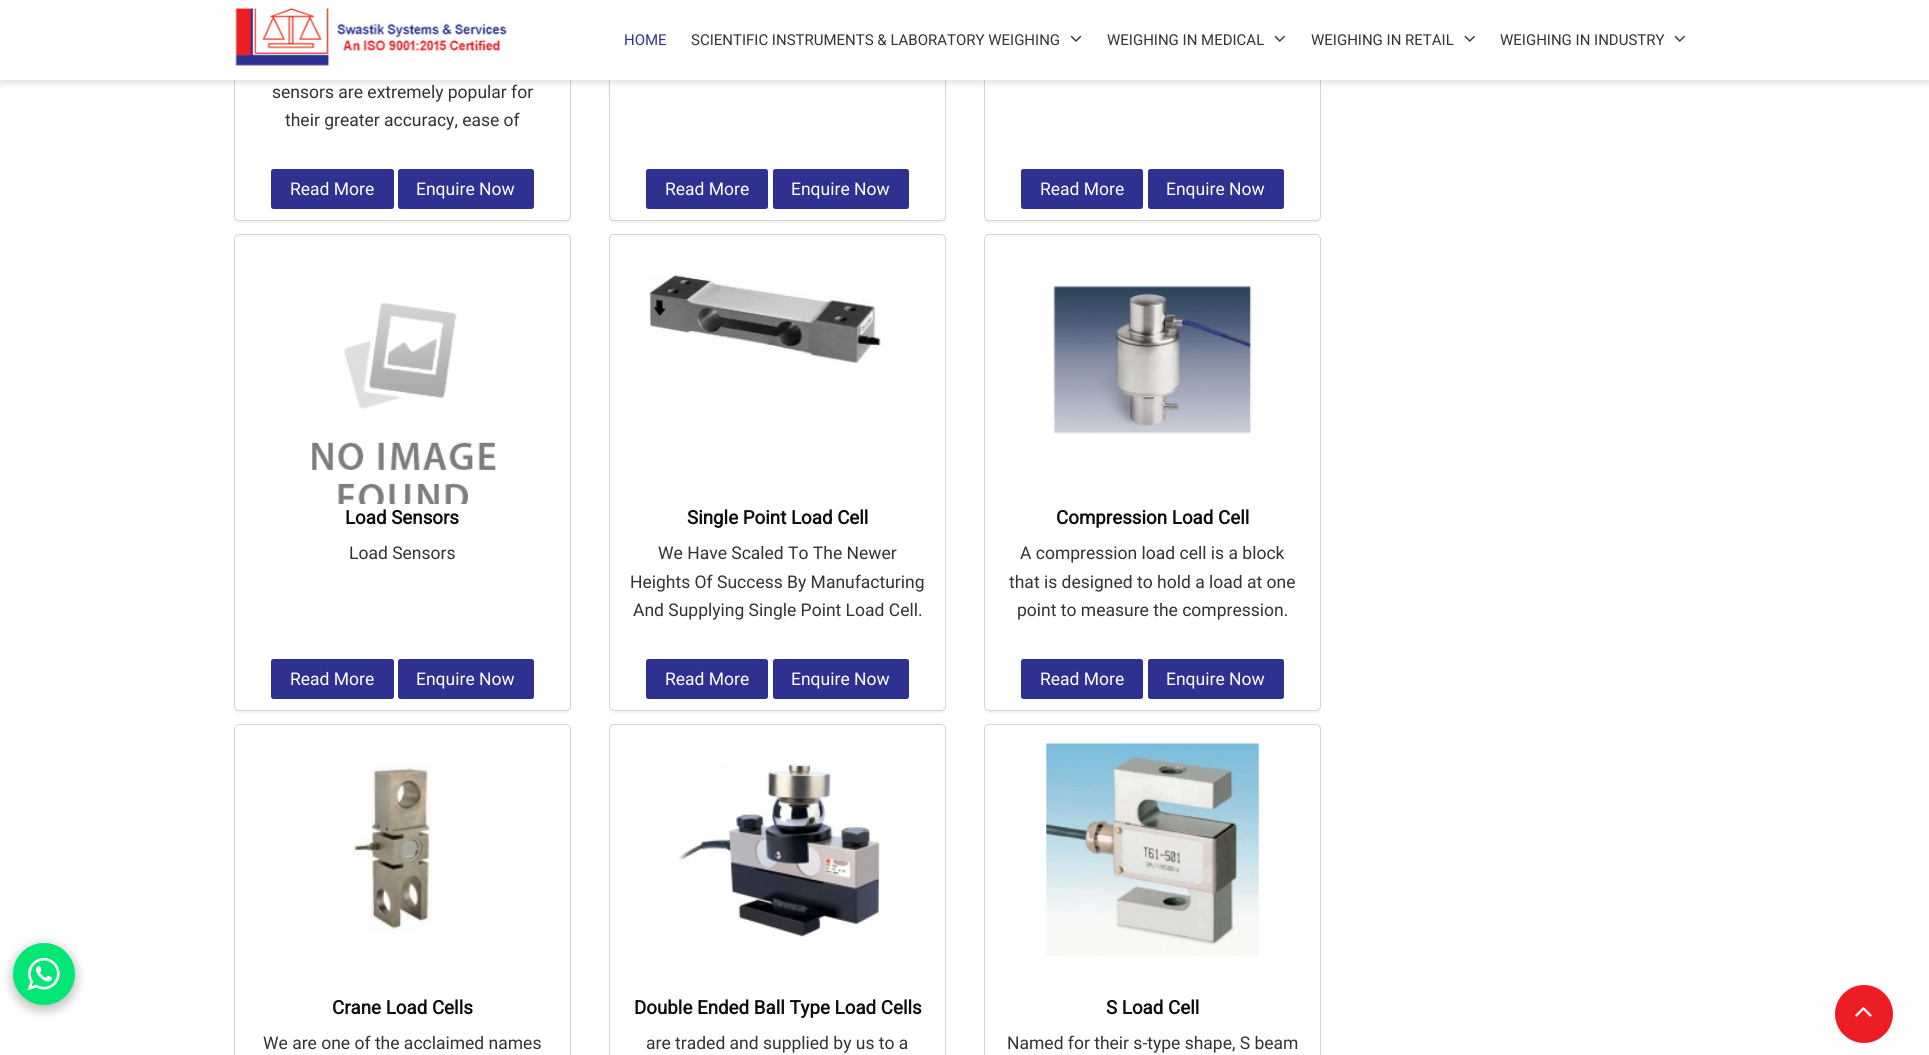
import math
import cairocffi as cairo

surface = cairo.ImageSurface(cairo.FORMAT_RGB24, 1929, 1055)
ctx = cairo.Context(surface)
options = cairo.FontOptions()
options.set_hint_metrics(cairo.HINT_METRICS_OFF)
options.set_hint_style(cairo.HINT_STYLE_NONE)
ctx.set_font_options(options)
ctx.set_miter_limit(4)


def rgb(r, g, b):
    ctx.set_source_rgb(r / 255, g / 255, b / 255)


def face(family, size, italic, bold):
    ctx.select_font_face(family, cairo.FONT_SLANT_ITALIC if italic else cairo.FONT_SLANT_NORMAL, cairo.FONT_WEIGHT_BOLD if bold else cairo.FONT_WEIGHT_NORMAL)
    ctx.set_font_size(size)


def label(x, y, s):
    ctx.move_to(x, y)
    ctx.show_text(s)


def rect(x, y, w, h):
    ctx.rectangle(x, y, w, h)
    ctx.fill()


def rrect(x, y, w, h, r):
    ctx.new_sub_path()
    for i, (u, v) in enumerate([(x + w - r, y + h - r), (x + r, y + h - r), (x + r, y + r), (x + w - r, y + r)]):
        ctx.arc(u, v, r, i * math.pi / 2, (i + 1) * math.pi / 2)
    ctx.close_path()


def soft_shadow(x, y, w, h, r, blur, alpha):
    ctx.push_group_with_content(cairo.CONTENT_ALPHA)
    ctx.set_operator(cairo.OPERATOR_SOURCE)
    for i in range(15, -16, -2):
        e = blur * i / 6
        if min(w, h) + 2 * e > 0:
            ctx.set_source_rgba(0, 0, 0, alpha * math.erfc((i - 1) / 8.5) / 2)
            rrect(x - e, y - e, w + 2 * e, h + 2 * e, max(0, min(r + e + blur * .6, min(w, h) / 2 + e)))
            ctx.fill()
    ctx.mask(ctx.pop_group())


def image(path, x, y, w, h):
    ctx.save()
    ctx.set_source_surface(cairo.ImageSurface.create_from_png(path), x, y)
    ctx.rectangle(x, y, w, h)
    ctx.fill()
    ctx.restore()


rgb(255, 255, 255)
ctx.paint()
ctx.save()
ctx.set_fill_rule(cairo.FILL_RULE_EVEN_ODD)
ctx.new_path()
ctx.move_to(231, 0)
ctx.line_to(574, 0)
ctx.line_to(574, 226)
ctx.line_to(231, 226)
ctx.close_path()
ctx.move_to(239, -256)
ctx.line_to(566, -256)
ctx.curve_to(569, -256, 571, -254, 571, -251)
ctx.line_to(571, 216)
ctx.curve_to(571, 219, 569, 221, 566, 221)
ctx.line_to(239, 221)
ctx.curve_to(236, 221, 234, 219, 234, 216)
ctx.line_to(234, -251)
ctx.curve_to(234, -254, 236, -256, 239, -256)
ctx.close_path()
ctx.clip()
rgb(0, 0, 0)
soft_shadow(234, -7, 337, 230, 5, 0.5, 0.05)
ctx.restore()
rrect(234.5, -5.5, 336, 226, 4.5)
rgb(212, 212, 212)
ctx.set_line_width(1)
ctx.stroke()
ctx.save()
ctx.set_fill_rule(cairo.FILL_RULE_EVEN_ODD)
ctx.new_path()
ctx.move_to(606, 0)
ctx.line_to(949, 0)
ctx.line_to(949, 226)
ctx.line_to(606, 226)
ctx.close_path()
ctx.move_to(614, -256)
ctx.line_to(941, -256)
ctx.curve_to(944, -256, 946, -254, 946, -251)
ctx.line_to(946, 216)
ctx.curve_to(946, 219, 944, 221, 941, 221)
ctx.line_to(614, 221)
ctx.curve_to(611, 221, 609, 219, 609, 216)
ctx.line_to(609, -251)
ctx.curve_to(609, -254, 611, -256, 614, -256)
ctx.close_path()
ctx.clip()
rgb(0, 0, 0)
soft_shadow(609, -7, 337, 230, 5, 0.5, 0.05)
ctx.restore()
rrect(609.5, -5.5, 336, 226, 4.5)
ctx.stroke()
ctx.save()
ctx.set_fill_rule(cairo.FILL_RULE_EVEN_ODD)
ctx.new_path()
ctx.move_to(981, 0)
ctx.line_to(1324, 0)
ctx.line_to(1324, 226)
ctx.line_to(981, 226)
ctx.close_path()
ctx.move_to(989, -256)
ctx.line_to(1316, -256)
ctx.curve_to(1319, -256, 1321, -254, 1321, -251)
ctx.line_to(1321, 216)
ctx.curve_to(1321, 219, 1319, 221, 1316, 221)
ctx.line_to(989, 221)
ctx.curve_to(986, 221, 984, 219, 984, 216)
ctx.line_to(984, -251)
ctx.curve_to(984, -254, 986, -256, 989, -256)
ctx.close_path()
ctx.clip()
rgb(0, 0, 0)
soft_shadow(984, -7, 337, 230, 5, 0.5, 0.05)
ctx.restore()
rrect(984.5, -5.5, 336, 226, 4.5)
ctx.stroke()
rgb(0, 0, 0)
soft_shadow(0, 4, 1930, 80, 0, 3, 0.1)
rgb(255, 255, 255)
rect(0, 0, 1929, 80)
image('image0.png', 235, 8, 272, 58)
face('Roboto', 15, 0, 0)
rgb(47, 49, 145)
label(624, 45, 'HOME')
rgb(51, 51, 51)
label(691, 45, 'SCIENTIFIC INSTRUMENTS & LABORATORY WEIGHING')
image('image1.png', 1070, 35, 12, 7)
label(1107, 45, 'WEIGHING IN MEDICAL')
image('image2.png', 1274, 35, 11, 7)
label(1311, 45, 'WEIGHING IN RETAIL')
image('image2.png', 1464, 35, 11, 7)
label(1500, 45, 'WEIGHING IN INDUSTRY')
image('image2.png', 1674, 35, 11, 7)
rgb(0, 0, 0)
soft_shadow(13, 946, 62, 63, 31, 6, 0.16)
soft_shadow(13, 946, 62, 63, 31, 6, 0.16)
rgb(1, 230, 117)
ctx.arc(44, 974, 31, 0, 2 * math.pi)
ctx.fill()
image('image3.png', 27, 957, 33, 34)
face('Roboto', 17.5, 0, 0)
rgb(51, 51, 51)
label(272, 98, 'sensors are extremely popular for')
label(285, 126, 'their greater accuracy, ease of')
rgb(47, 49, 145)
rrect(271, 169, 123, 40, 2.5)
ctx.fill()
rgb(255, 255, 255)
label(290, 195, 'Read More')
rgb(47, 49, 145)
rrect(398, 169, 136, 40, 2.5)
ctx.fill()
rgb(255, 255, 255)
label(416, 195, 'Enquire Now')
rgb(47, 49, 145)
rrect(646, 169, 122, 40, 2.5)
ctx.fill()
rgb(255, 255, 255)
label(665, 195, 'Read More')
rgb(47, 49, 145)
rrect(773, 169, 136, 40, 2.5)
ctx.fill()
rgb(255, 255, 255)
label(791, 195, 'Enquire Now')
rgb(47, 49, 145)
rrect(1021, 169, 122, 40, 2.5)
ctx.fill()
rgb(255, 255, 255)
label(1040, 195, 'Read More')
rgb(47, 49, 145)
rrect(1148, 169, 136, 40, 2.5)
ctx.fill()
rgb(255, 255, 255)
label(1166, 195, 'Enquire Now')
ctx.save()
ctx.set_fill_rule(cairo.FILL_RULE_EVEN_ODD)
ctx.new_path()
ctx.move_to(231, 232)
ctx.line_to(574, 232)
ctx.line_to(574, 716)
ctx.line_to(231, 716)
ctx.close_path()
ctx.move_to(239, 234)
ctx.line_to(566, 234)
ctx.curve_to(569, 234, 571, 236, 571, 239)
ctx.line_to(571, 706)
ctx.curve_to(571, 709, 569, 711, 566, 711)
ctx.line_to(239, 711)
ctx.curve_to(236, 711, 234, 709, 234, 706)
ctx.line_to(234, 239)
ctx.curve_to(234, 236, 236, 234, 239, 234)
ctx.close_path()
ctx.clip()
rgb(0, 0, 0)
soft_shadow(234, 235, 337, 478, 5, 0.5, 0.05)
ctx.restore()
rrect(234.5, 234.5, 336, 476, 4.5)
rgb(212, 212, 212)
ctx.stroke()
image('image4.png', 312, 303, 185, 201)
face('Roboto', 18.75, 0, 1)
rgb(12, 12, 12)
label(345, 524, 'Load Sensors')
face('Roboto', 17.5, 0, 0)
rgb(51, 51, 51)
label(349, 559, 'Load Sensors')
rgb(47, 49, 145)
rrect(271, 659, 123, 40, 2.5)
ctx.fill()
rgb(255, 255, 255)
label(290, 685, 'Read More')
rgb(47, 49, 145)
rrect(398, 659, 136, 40, 2.5)
ctx.fill()
rgb(255, 255, 255)
label(416, 685, 'Enquire Now')
ctx.save()
ctx.set_fill_rule(cairo.FILL_RULE_EVEN_ODD)
ctx.new_path()
ctx.move_to(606, 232)
ctx.line_to(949, 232)
ctx.line_to(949, 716)
ctx.line_to(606, 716)
ctx.close_path()
ctx.move_to(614, 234)
ctx.line_to(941, 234)
ctx.curve_to(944, 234, 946, 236, 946, 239)
ctx.line_to(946, 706)
ctx.curve_to(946, 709, 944, 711, 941, 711)
ctx.line_to(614, 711)
ctx.curve_to(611, 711, 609, 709, 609, 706)
ctx.line_to(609, 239)
ctx.curve_to(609, 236, 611, 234, 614, 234)
ctx.close_path()
ctx.clip()
rgb(0, 0, 0)
soft_shadow(609, 235, 337, 478, 5, 0.5, 0.05)
ctx.restore()
rrect(609.5, 234.5, 336, 476, 4.5)
rgb(212, 212, 212)
ctx.stroke()
image('image5.png', 648, 274, 233, 89)
face('Roboto', 18.75, 0, 1)
rgb(12, 12, 12)
label(687, 524, 'Single Point Load Cell')
face('Roboto', 17.5, 0, 0)
rgb(51, 51, 51)
label(658, 559, 'We Have Scaled To The Newer')
label(630, 588, 'Heights Of Success By Manufacturing')
label(633, 616, 'And Supplying Single Point Load Cell.')
rgb(47, 49, 145)
rrect(646, 659, 122, 40, 2.5)
ctx.fill()
rgb(255, 255, 255)
label(665, 685, 'Read More')
rgb(47, 49, 145)
rrect(773, 659, 136, 40, 2.5)
ctx.fill()
rgb(255, 255, 255)
label(791, 685, 'Enquire Now')
ctx.save()
ctx.set_fill_rule(cairo.FILL_RULE_EVEN_ODD)
ctx.new_path()
ctx.move_to(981, 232)
ctx.line_to(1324, 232)
ctx.line_to(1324, 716)
ctx.line_to(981, 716)
ctx.close_path()
ctx.move_to(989, 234)
ctx.line_to(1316, 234)
ctx.curve_to(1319, 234, 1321, 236, 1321, 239)
ctx.line_to(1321, 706)
ctx.curve_to(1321, 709, 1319, 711, 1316, 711)
ctx.line_to(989, 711)
ctx.curve_to(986, 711, 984, 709, 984, 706)
ctx.line_to(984, 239)
ctx.curve_to(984, 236, 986, 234, 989, 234)
ctx.close_path()
ctx.clip()
rgb(0, 0, 0)
soft_shadow(984, 235, 337, 478, 5, 0.5, 0.05)
ctx.restore()
rrect(984.5, 234.5, 336, 476, 4.5)
rgb(212, 212, 212)
ctx.stroke()
image('image6.png', 1053, 285, 199, 149)
face('Roboto', 18.75, 0, 1)
rgb(12, 12, 12)
label(1056, 524, 'Compression Load Cell')
face('Roboto', 17.5, 0, 0)
rgb(51, 51, 51)
label(1020, 559, 'A compression load cell is a block')
label(1009, 588, 'that is designed to hold a load at one')
label(1017, 616, 'point to measure the compression.')
rgb(47, 49, 145)
rrect(1021, 659, 122, 40, 2.5)
ctx.fill()
rgb(255, 255, 255)
label(1040, 685, 'Read More')
rgb(47, 49, 145)
rrect(1148, 659, 136, 40, 2.5)
ctx.fill()
rgb(255, 255, 255)
label(1166, 685, 'Enquire Now')
rrect(234.5, 724.5, 336, 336, 4.5)
rgb(212, 212, 212)
ctx.stroke()
image('image7.png', 351, 764, 82, 169)
face('Roboto', 18.75, 0, 1)
rgb(12, 12, 12)
label(332, 1014, 'Crane Load Cells')
face('Roboto', 17.5, 0, 0)
rgb(51, 51, 51)
label(263, 1049, 'We are one of the acclaimed names')
rrect(609.5, 724.5, 336, 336, 4.5)
rgb(212, 212, 212)
ctx.stroke()
image('image8.png', 678, 764, 203, 173)
face('Roboto', 18.75, 0, 1)
rgb(12, 12, 12)
label(634, 1014, 'Double Ended Ball Type Load Cells')
face('Roboto', 17.5, 0, 0)
rgb(51, 51, 51)
label(646, 1049, 'are traded and supplied by us to a')
rrect(984.5, 724.5, 336, 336, 4.5)
rgb(212, 212, 212)
ctx.stroke()
image('image9.png', 1046, 743, 213, 213)
face('Roboto', 18.75, 0, 1)
rgb(12, 12, 12)
label(1106, 1014, 'S Load Cell')
face('Roboto', 17.5, 0, 0)
rgb(51, 51, 51)
label(1007, 1049, 'Named for their s-type shape, S beam')
rgb(236, 29, 37)
ctx.new_path()
ctx.arc(1864, 1014, 29, 0, 2 * math.pi)
ctx.fill()
image('image10.png', 1855, 1007, 17, 10)
surface.write_to_png('render.png')
